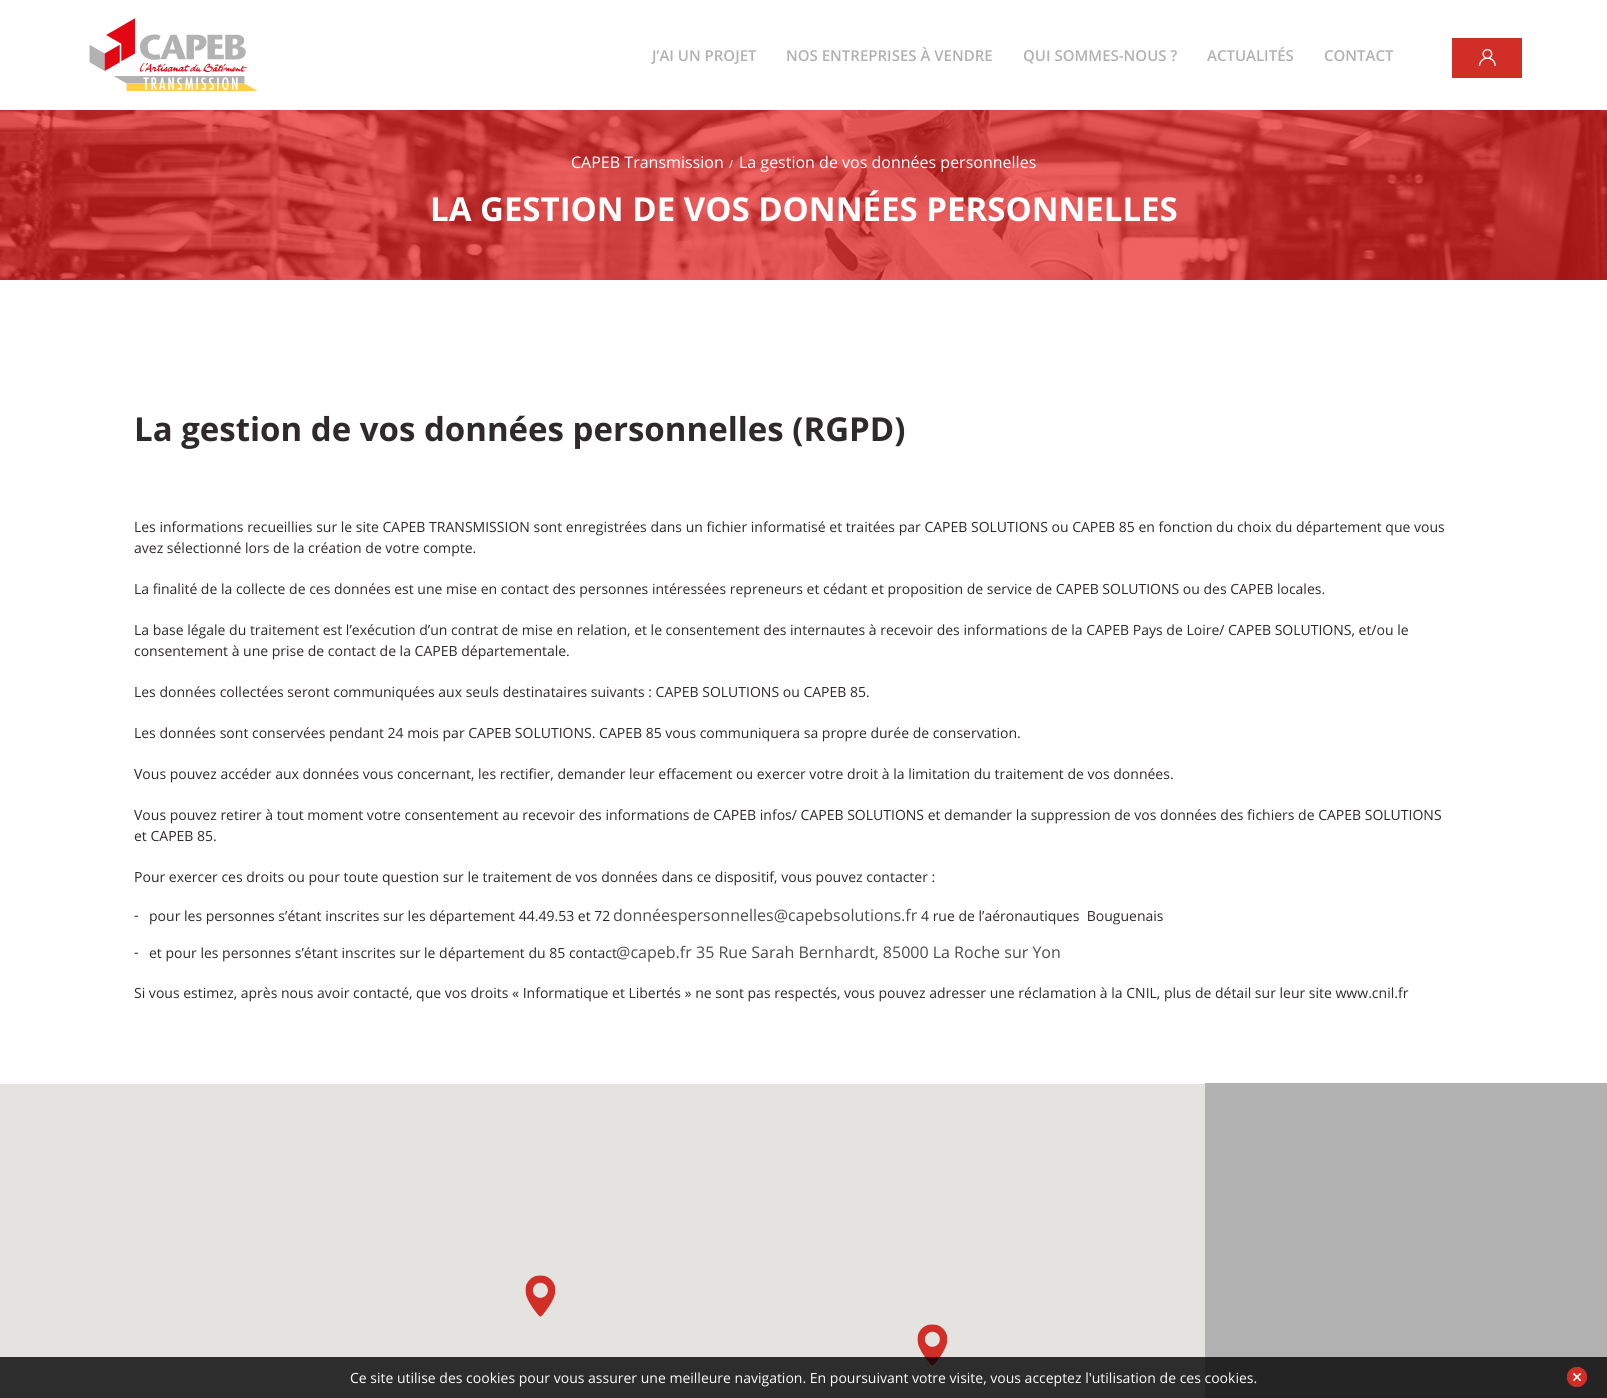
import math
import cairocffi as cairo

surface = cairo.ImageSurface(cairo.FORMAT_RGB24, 1607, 1398)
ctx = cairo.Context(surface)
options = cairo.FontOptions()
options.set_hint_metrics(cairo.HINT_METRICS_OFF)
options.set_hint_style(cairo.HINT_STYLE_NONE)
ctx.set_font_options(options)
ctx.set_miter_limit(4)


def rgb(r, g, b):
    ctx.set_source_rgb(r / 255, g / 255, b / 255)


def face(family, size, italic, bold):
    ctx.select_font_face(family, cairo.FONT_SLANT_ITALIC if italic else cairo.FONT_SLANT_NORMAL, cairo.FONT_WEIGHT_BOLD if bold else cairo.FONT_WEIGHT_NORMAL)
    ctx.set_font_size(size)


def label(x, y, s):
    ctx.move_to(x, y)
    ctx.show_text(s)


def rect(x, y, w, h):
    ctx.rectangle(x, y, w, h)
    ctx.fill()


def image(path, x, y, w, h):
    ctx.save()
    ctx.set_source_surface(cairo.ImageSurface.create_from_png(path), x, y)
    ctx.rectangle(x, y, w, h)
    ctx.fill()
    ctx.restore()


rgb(255, 255, 255)
ctx.paint()
image('image0.png', 89, 18, 169, 73)
face('Open Sans SemiBold', 15, 0, 0)
rgb(178, 178, 178)
label(652, 61, 'J’AI UN PROJET')
label(786, 61, 'NOS ENTREPRISES À VENDRE')
label(1023, 61, 'QUI SOMMES-NOUS ?')
label(1207, 61, 'ACTUALITÉS')
label(1324, 61, 'CONTACT')
rgb(209, 46, 39)
rect(1452, 38, 70, 40)
image('image1.png', 1478, 49, 18, 17)
image('image2.png', 0, 110, 1607, 170)
face('Open Sans', 16, 0, 0)
rgb(255, 255, 255)
label(571, 168, 'CAPEB Transmission')
face('Open Sans', 11, 0, 0)
label(729, 168, '/')
face('Open Sans', 16, 0, 0)
label(739, 168, 'La gestion de vos données personnelles')
face('Open Sans', 33, 0, 1)
label(430, 221, 'LA GESTION DE VOS DONNÉES PERSONNELLES')
rgb(46, 41, 43)
label(134, 441, 'La gestion de vos données personnelles (RGPD)')
face('Open Sans', 14, 0, 0)
label(134, 532, 'Les informations recueillies sur le site CAPEB TRANSMISSION sont enregistrées dans un fichier informatisé et traitées par CAPEB SOLUTIONS ou CAPEB 85 en fonction du choix du département que vous')
label(134, 553, 'avez sélectionné lors de la création de votre compte.')
label(134, 594, 'La finalité de la collecte de ces données est une mise en contact des personnes intéressées repreneurs et cédant et proposition de service de CAPEB SOLUTIONS ou des CAPEB locales.')
label(134, 635, 'La base légale du traitement est l’exécution d’un contrat de mise en relation, et le consentement des internautes à recevoir des informations de la CAPEB Pays de Loire/ CAPEB SOLUTIONS, et/ou le')
label(134, 656, 'consentement à une prise de contact de la CAPEB départementale.')
label(134, 697, 'Les données collectées seront communiquées aux seuls destinataires suivants : CAPEB SOLUTIONS ou CAPEB 85.')
label(134, 738, 'Les données sont conservées pendant 24 mois par CAPEB SOLUTIONS. CAPEB 85 vous communiquera sa propre durée de conservation.')
label(134, 779, 'Vous pouvez accéder aux données vous concernant, les rectifier, demander leur effacement ou exercer votre droit à la limitation du traitement de vos données.')
label(134, 820, 'Vous pouvez retirer à tout moment votre consentement au recevoir des informations de CAPEB infos/ CAPEB SOLUTIONS et demander la suppression de vos données des fichiers de CAPEB SOLUTIONS')
label(134, 841, 'et CAPEB 85.')
label(134, 882, 'Pour exercer ces droits ou pour toute question sur le traitement de vos données dans ce dispositif, vous pouvez contacter :')
label(134, 920, '-')
label(149, 921, 'pour les personnes s’étant inscrites sur les département 44.49.53 et 72')
face('Open Sans', 16, 0, 0)
rgb(77, 77, 77)
label(613, 921, 'donnéespersonnelles@capebsolutions.fr')
face('Open Sans', 14, 0, 0)
rgb(46, 41, 43)
label(921, 921, '4 rue de l’aéronautiques  Bouguenais')
label(134, 957, '-')
label(149, 958, 'et pour les personnes s’étant inscrites sur le département du 85 contact')
face('Open Sans', 16, 0, 0)
rgb(77, 77, 77)
label(616, 958, '@capeb.fr')
label(696, 958, '35 Rue Sarah Bernhardt, 85000 La Roche sur Yon')
face('Open Sans', 14, 0, 0)
rgb(46, 41, 43)
label(134, 998, 'Si vous estimez, après nous avoir contacté, que vos droits « Informatique et Libertés » ne sont pas respectés, vous pouvez adresser une réclamation à la CNIL, plus de détail sur leur site www.cnil.fr')
rgb(229, 227, 223)
rect(0, 1084, 1205, 314)
image('image3.png', 525, 1275, 31, 42)
image('image3.png', 917, 1324, 31, 42)
rgb(178, 178, 178)
rect(1205, 1083, 402, 315)
ctx.set_source_rgba(0, 0, 0, 0.8)
rect(0, 1357, 1607, 41)
rgb(255, 255, 255)
label(350, 1383, 'Ce site utilise des cookies pour vous assurer une meilleure navigation. En poursuivant votre visite, vous acceptez l\'utilisation de ces cookies.')
image('image4.png', 1567, 1367, 20, 20)
surface.write_to_png('render.png')
